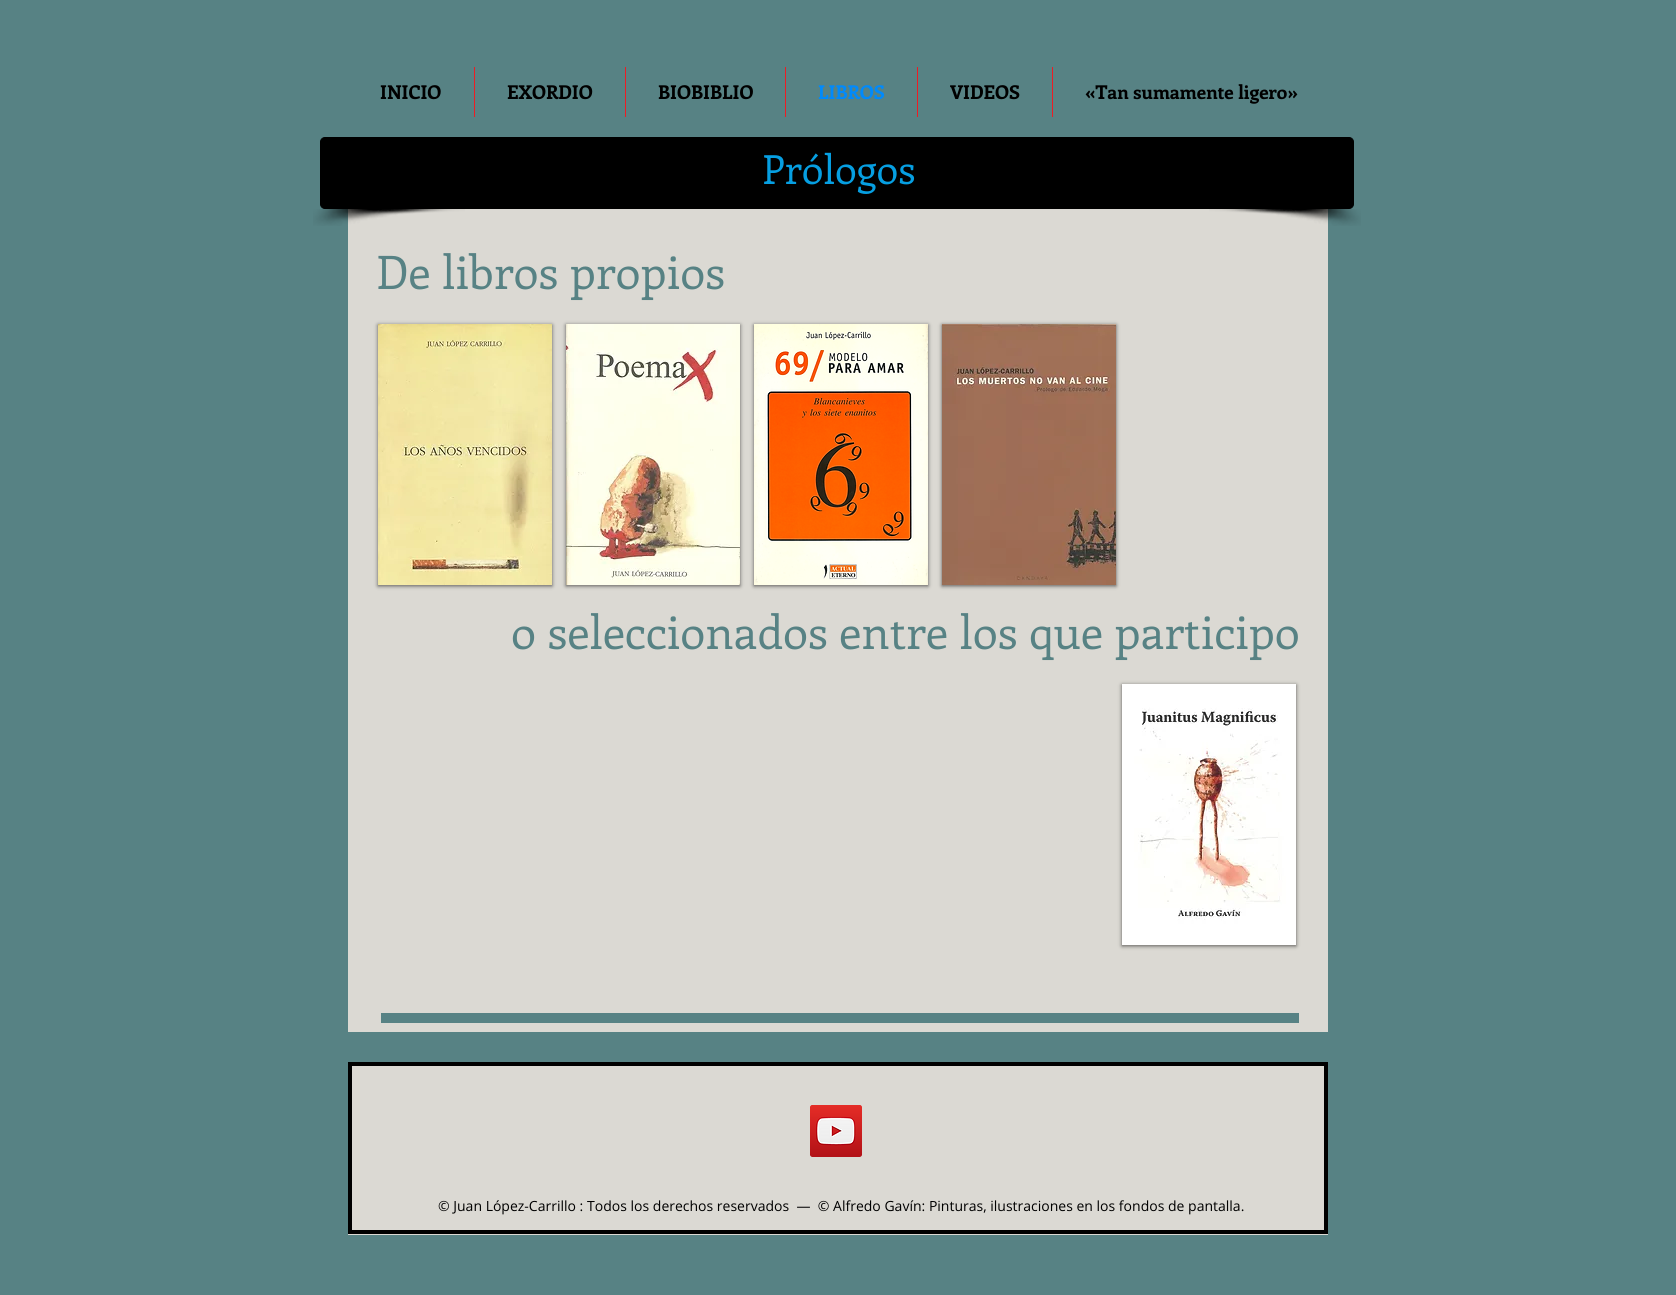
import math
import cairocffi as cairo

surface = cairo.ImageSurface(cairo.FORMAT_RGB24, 1676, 1295)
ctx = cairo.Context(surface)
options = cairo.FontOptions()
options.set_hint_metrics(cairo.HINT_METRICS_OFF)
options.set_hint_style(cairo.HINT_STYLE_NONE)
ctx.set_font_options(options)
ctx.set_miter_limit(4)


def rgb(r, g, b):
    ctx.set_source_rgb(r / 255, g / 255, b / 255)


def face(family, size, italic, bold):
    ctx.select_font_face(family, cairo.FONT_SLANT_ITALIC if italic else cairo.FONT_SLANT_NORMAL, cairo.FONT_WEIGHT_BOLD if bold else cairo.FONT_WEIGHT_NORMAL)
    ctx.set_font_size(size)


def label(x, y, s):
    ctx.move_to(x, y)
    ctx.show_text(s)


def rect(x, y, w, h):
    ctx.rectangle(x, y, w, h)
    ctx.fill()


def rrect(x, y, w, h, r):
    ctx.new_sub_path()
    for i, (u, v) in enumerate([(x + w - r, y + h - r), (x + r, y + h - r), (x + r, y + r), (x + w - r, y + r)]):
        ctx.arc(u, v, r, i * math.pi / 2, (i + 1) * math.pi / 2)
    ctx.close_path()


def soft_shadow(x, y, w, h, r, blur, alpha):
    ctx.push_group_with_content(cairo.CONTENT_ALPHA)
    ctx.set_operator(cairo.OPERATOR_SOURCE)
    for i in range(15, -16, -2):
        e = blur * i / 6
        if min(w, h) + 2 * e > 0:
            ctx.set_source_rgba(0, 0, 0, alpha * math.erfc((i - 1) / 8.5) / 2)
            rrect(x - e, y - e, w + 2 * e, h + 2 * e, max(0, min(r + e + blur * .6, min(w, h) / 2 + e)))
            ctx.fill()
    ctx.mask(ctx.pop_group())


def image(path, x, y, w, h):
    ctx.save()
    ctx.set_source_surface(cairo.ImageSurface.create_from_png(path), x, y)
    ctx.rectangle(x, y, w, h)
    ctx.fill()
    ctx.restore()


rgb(87, 130, 132)
ctx.paint()
face('Enriqueta', 19, 0, 1)
rgb(0, 0, 0)
label(380, 99, 'INICIO')
rgb(237, 28, 36)
rect(474, 67, 1, 50)
rgb(0, 0, 0)
label(507, 99, 'EXORDIO')
rgb(237, 28, 36)
rect(625, 67, 1, 50)
rgb(0, 0, 0)
label(658, 99, 'BIOBIBLIO')
rgb(237, 28, 36)
rect(785, 67, 1, 50)
rgb(0, 138, 252)
label(818, 99, 'LIBROS')
rgb(237, 28, 36)
rect(917, 67, 1, 50)
rgb(0, 0, 0)
label(950, 99, 'VIDEOS')
rgb(237, 28, 36)
rect(1052, 67, 1, 50)
rgb(0, 0, 0)
label(1085, 99, '«Tan sumamente ligero»')
rrect(320.5, 137.5, 1033, 71, 4.5)
ctx.fill_preserve()
ctx.set_line_width(1)
ctx.stroke()
face('Enriqueta', 40, 0, 0)
rgb(6, 159, 226)
label(762, 184, 'Prólogos')
rgb(219, 217, 211)
rect(348, 209, 980, 823)
image('image0.png', 313, 209, 152, 17)
image('image1.png', 1209, 209, 152, 17)
face('Enriqueta', 46, 0, 0)
rgb(87, 130, 132)
label(376, 289, 'De libros propios')
rgb(0, 0, 0)
soft_shadow(378, 325, 174, 261, 0, 2, 0.6)
image('image2.png', 378, 324, 174, 261)
soft_shadow(566, 325, 174, 261, 0, 2, 0.6)
image('image3.png', 566, 324, 174, 261)
soft_shadow(754, 325, 174, 261, 0, 2, 0.6)
image('image4.png', 754, 324, 174, 261)
soft_shadow(942, 325, 174, 261, 0, 2, 0.6)
image('image5.png', 942, 324, 174, 261)
rgb(87, 130, 132)
label(511, 649, 'o seleccionados entre los que participo')
rgb(0, 0, 0)
soft_shadow(1122, 685, 174, 261, 0, 2, 0.6)
image('image6.png', 1122, 684, 174, 261)
rgb(87, 130, 132)
rect(381, 1013, 918, 10)
rgb(219, 217, 211)
rect(348, 1066, 980, 169)
ctx.rectangle(350, 1064, 976, 168)
rgb(0, 0, 0)
ctx.set_line_width(4)
ctx.stroke()
image('image7.png', 810, 1105, 52, 52)
face('Open Sans', 14, 0, 0)
label(438, 1211, '© Juan López-Carrillo : Todos los derechos reservados  —  © Alfredo Gavín: Pinturas, ilustraciones en los fondos de pantalla.')
surface.write_to_png('render.png')
